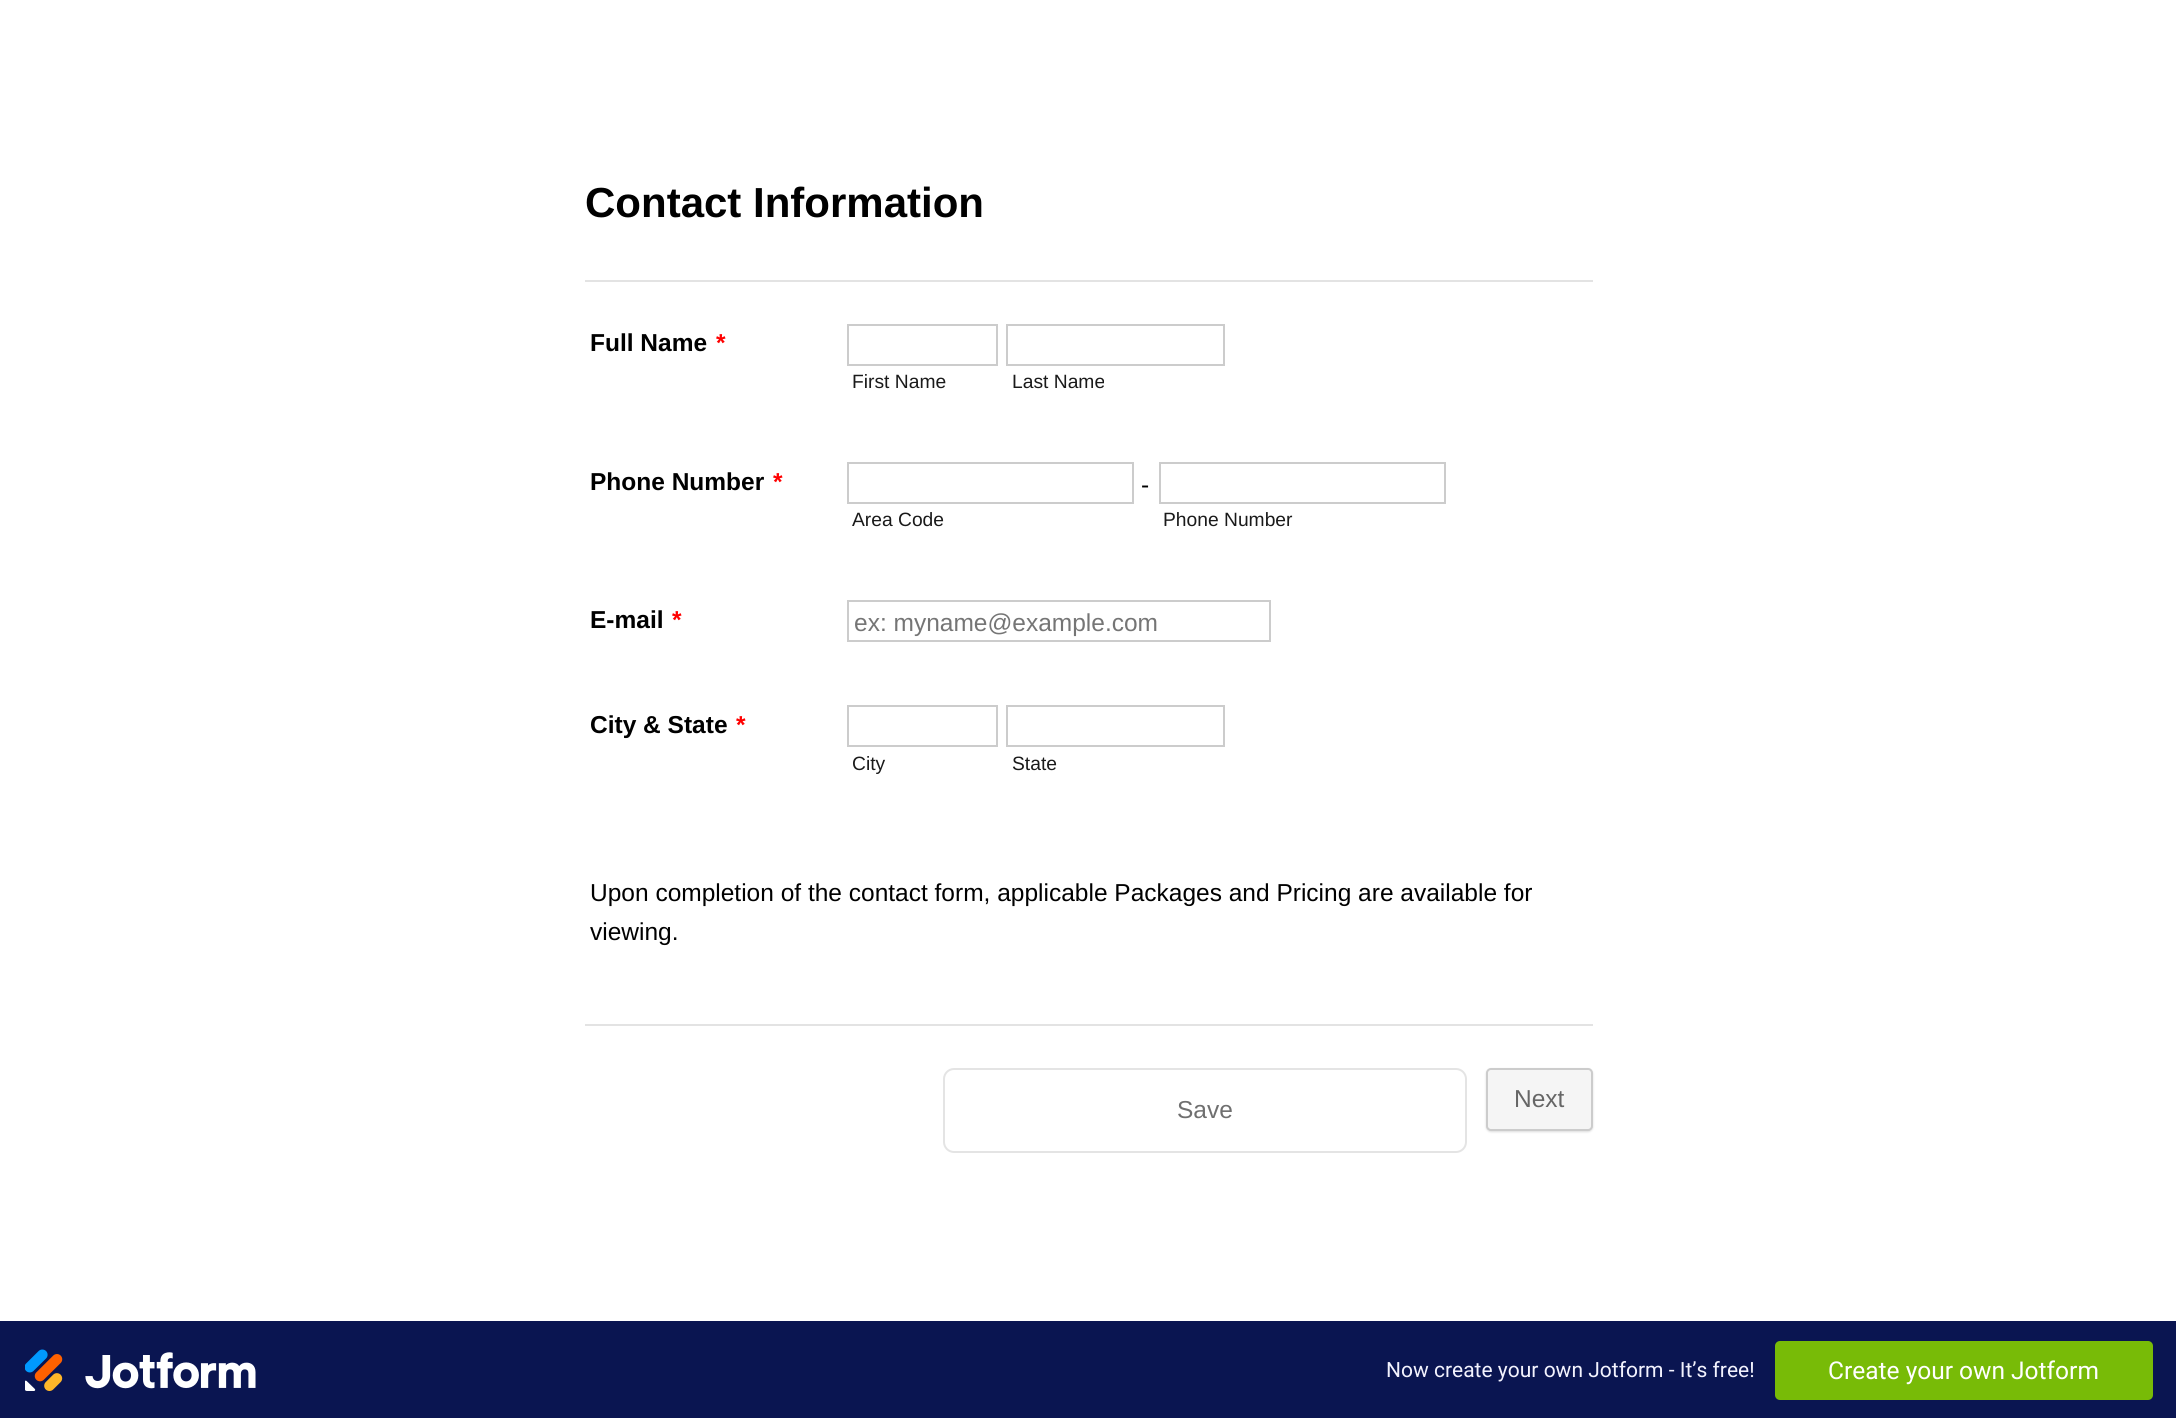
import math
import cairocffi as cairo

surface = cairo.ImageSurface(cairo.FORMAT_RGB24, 2176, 1418)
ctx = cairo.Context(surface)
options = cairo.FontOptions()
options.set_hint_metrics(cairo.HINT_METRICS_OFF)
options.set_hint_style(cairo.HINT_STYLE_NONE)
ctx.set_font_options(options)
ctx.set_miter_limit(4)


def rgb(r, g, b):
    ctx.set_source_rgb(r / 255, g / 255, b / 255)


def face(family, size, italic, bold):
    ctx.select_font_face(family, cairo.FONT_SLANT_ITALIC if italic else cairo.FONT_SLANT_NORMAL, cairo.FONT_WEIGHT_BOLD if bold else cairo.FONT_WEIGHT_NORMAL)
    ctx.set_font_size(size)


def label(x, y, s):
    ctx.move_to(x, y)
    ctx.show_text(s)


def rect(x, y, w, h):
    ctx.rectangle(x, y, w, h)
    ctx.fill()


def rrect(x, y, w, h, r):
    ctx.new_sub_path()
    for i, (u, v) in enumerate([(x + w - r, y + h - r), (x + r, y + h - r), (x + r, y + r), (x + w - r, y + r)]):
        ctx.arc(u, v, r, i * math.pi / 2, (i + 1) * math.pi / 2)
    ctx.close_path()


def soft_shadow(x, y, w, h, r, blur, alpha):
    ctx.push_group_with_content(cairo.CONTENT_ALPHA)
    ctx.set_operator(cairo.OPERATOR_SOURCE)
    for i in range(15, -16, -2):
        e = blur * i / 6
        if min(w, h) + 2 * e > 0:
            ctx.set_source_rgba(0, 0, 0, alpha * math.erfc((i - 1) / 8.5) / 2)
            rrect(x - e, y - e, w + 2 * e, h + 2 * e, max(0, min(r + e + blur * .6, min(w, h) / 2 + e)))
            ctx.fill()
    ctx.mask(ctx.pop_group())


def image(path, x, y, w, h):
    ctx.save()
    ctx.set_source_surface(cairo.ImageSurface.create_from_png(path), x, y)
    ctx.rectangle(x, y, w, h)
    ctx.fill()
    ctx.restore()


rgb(255, 255, 255)
ctx.paint()
rgb(227, 227, 227)
rect(585, 280, 1008, 2)
face('Liberation Sans', 42, 0, 1)
rgb(0, 0, 0)
label(585, 217, 'Contact Information')
face('Liberation Sans', 24.5, 0, 1)
label(590, 351, 'Full Name')
rgb(255, 0, 0)
label(716, 351, '*')
ctx.rectangle(848, 325, 149, 40)
rgb(204, 204, 204)
ctx.stroke()
face('Liberation Sans', 19.25, 0, 0)
rgb(26, 26, 26)
label(852, 388, 'First Name')
ctx.rectangle(1007, 325, 217, 40)
rgb(204, 204, 204)
ctx.stroke()
rgb(26, 26, 26)
label(1012, 388, 'Last Name')
face('Liberation Sans', 24.5, 0, 1)
rgb(0, 0, 0)
label(590, 490, 'Phone Number')
rgb(255, 0, 0)
label(773, 490, '*')
ctx.rectangle(848, 463, 285, 40)
rgb(204, 204, 204)
ctx.stroke()
face('Liberation Sans', 24.5, 0, 0)
rgb(0, 0, 0)
label(1141, 493, '-')
face('Liberation Sans', 19.25, 0, 0)
rgb(26, 26, 26)
label(852, 526, 'Area Code')
ctx.rectangle(1160, 463, 285, 40)
rgb(204, 204, 204)
ctx.stroke()
rgb(26, 26, 26)
label(1163, 526, 'Phone Number')
face('Liberation Sans', 24.5, 0, 1)
rgb(0, 0, 0)
label(590, 628, 'E-mail')
rgb(255, 0, 0)
label(672, 628, '*')
ctx.rectangle(848, 601, 422, 40)
rgb(204, 204, 204)
ctx.stroke()
face('Liberation Sans', 24.5, 0, 0)
rgb(117, 117, 117)
label(854, 631, 'ex: myname@example.com')
face('Liberation Sans', 24.5, 0, 1)
rgb(0, 0, 0)
label(590, 733, 'City & State')
rgb(255, 0, 0)
label(736, 733, '*')
ctx.rectangle(848, 706, 149, 40)
rgb(204, 204, 204)
ctx.stroke()
face('Liberation Sans', 19.25, 0, 0)
rgb(26, 26, 26)
label(852, 770, 'City')
ctx.rectangle(1007, 706, 217, 40)
rgb(204, 204, 204)
ctx.stroke()
rgb(26, 26, 26)
label(1012, 770, 'State')
face('Liberation Sans', 24.5, 0, 0)
rgb(0, 0, 0)
label(590, 901, 'Upon completion of the contact form, applicable Packages and Pricing are available for')
label(590, 940, 'viewing.')
rgb(227, 227, 227)
rect(585, 1024, 1008, 2)
rrect(944, 1069, 522, 83, 10)
rgb(228, 228, 228)
ctx.stroke()
rgb(111, 111, 111)
label(1177, 1118, 'Save')
rgb(221, 221, 221)
soft_shadow(1486, 1069, 107, 63, 5, 1, 1)
rgb(245, 245, 245)
rrect(1487, 1069, 105, 61, 4)
ctx.fill_preserve()
rgb(204, 204, 204)
ctx.stroke()
rgb(102, 102, 102)
label(1514, 1107, 'Next')
rgb(10, 21, 81)
rect(0, 1321, 2176, 97)
image('image0.png', 25, 1349, 231, 42)
face('Roboto', 21, 0, 0)
rgb(243, 243, 254)
label(1386, 1377, 'Now create your own Jotform - It’s free!')
rgb(120, 187, 7)
rrect(1775, 1341, 378, 59, 5)
ctx.fill()
face('Roboto', 24.5, 0, 0)
rgb(255, 255, 255)
label(1828, 1379, 'Create your own Jotform')
surface.write_to_png('render.png')
